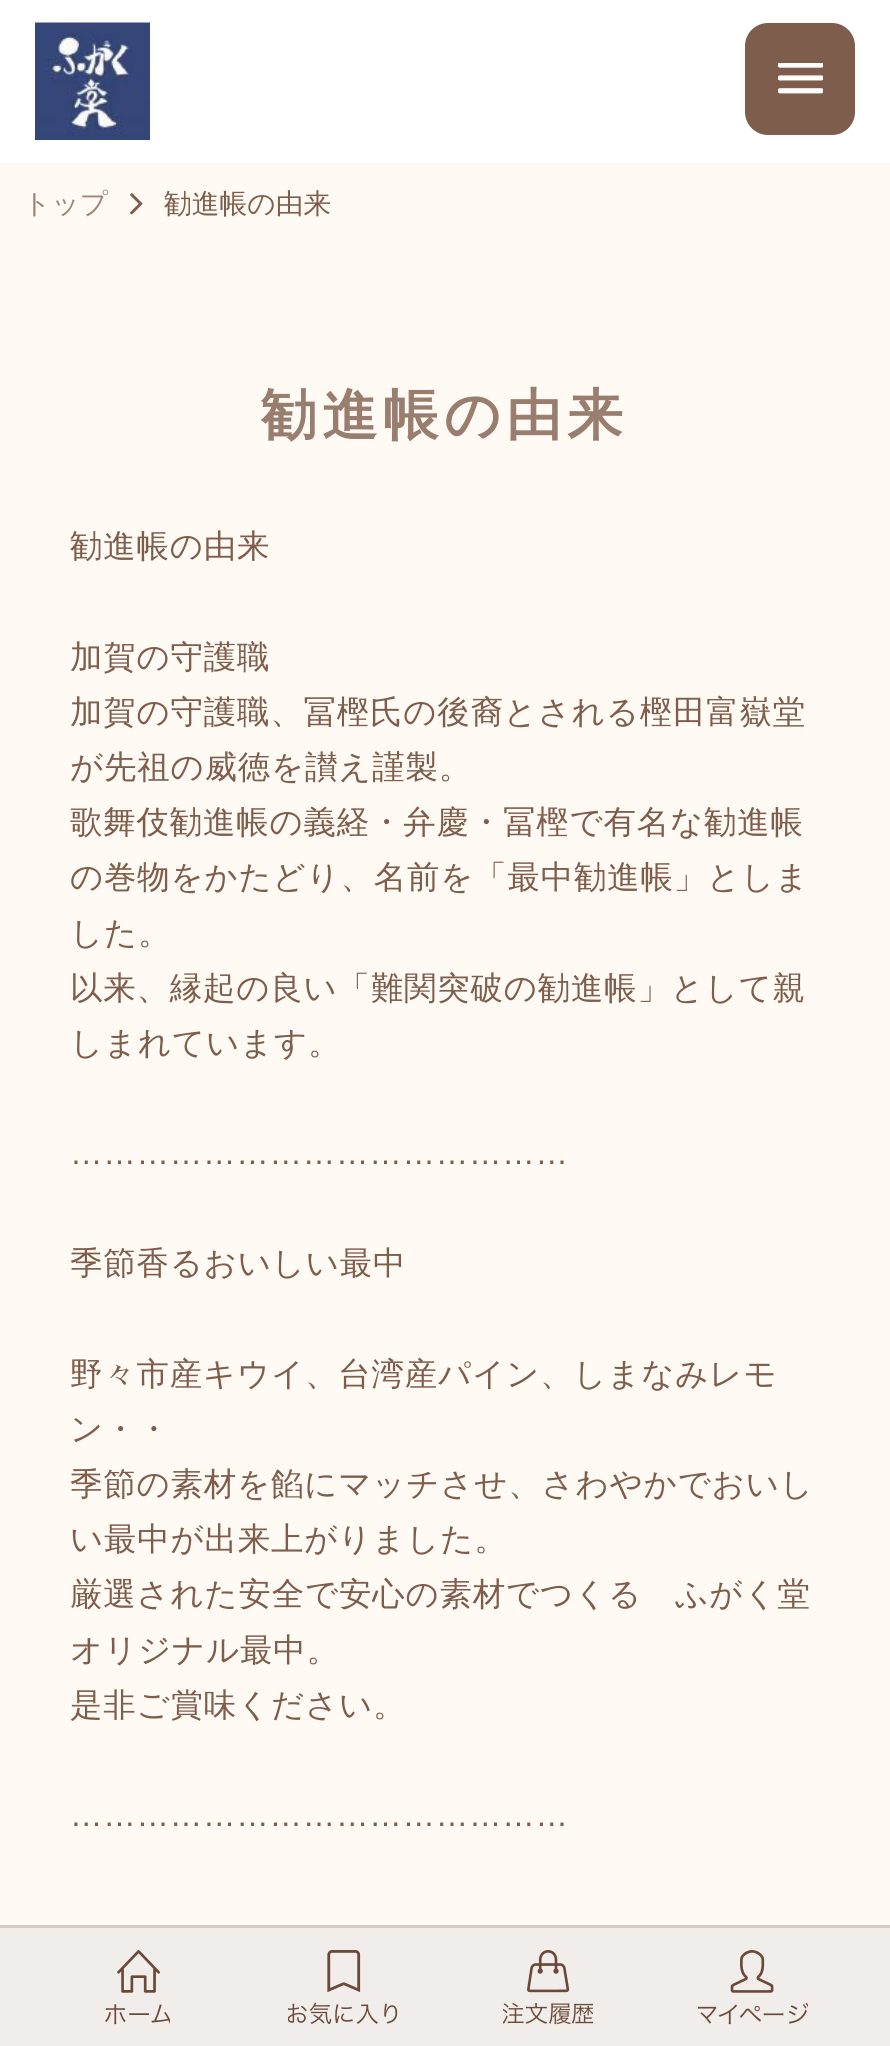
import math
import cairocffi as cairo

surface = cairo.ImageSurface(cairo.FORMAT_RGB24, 890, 2046)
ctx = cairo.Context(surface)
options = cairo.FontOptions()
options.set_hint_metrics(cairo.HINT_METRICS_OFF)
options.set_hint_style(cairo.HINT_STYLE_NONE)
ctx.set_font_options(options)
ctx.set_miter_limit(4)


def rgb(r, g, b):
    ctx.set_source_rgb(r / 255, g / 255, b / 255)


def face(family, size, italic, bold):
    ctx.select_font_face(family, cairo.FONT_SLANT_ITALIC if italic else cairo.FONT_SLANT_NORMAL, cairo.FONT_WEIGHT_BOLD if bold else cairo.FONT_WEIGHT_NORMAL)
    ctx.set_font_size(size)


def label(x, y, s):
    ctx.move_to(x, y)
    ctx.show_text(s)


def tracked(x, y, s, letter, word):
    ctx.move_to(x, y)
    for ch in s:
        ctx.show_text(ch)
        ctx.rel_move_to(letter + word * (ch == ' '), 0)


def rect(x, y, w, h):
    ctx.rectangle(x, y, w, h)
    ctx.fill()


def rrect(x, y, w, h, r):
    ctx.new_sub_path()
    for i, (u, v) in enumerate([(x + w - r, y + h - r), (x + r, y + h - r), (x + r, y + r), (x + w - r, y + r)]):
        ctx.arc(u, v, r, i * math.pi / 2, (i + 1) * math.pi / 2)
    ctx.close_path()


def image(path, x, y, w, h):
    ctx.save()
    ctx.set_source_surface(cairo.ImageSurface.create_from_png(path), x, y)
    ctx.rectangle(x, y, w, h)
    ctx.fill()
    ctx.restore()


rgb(255, 255, 255)
ctx.paint()
image('image0.png', 35, 22, 115, 118)
rgb(127, 93, 76)
rrect(745, 23, 110, 112, 23)
ctx.fill()
image('image1.png', 778, 63, 45, 31)
rgb(255, 251, 244)
rect(0, 163, 890, 1883)
face('WenQuanYi Zen Hei Medium', 27.75, 0, 0)
rgb(159, 133, 118)
label(23, 213, 'トップ')
image('image2.png', 130, 193, 13, 22)
rgb(127, 93, 76)
label(164, 213, '勧進帳の由来')
face('WenQuanYi Zen Hei', 55.5, 0, 1)
rgb(153, 125, 110)
tracked(261, 434, '勧進帳の由来', 5.5, 0)
face('WenQuanYi Zen Hei Medium', 32.45, 0, 0)
rgb(127, 93, 76)
tracked(70, 557, '勧進帳の由来', 0.8, 0)
tracked(70, 668, '加賀の守護職', 0.8, 0)
tracked(70, 723, '加賀の守護職、冨樫氏の後裔とされる樫田富嶽堂', 0.8, 0)
tracked(70, 778, 'が先祖の威徳を讃え謹製。', 0.8, 0)
tracked(70, 833, '歌舞伎勧進帳の義経・弁慶・冨樫で有名な勧進帳', 0.8, 0)
tracked(70, 888, 'の巻物をかたどり、名前を「最中勧進帳」としま', 0.8, 0)
tracked(70, 944, 'した。', 0.8, 0)
tracked(70, 999, '以来、縁起の良い「難関突破の勧進帳」として親', 0.8, 0)
tracked(70, 1054, 'しまれています。', 0.8, 0)
face('Liberation Sans', 32.45, 0, 0)
tracked(70, 1164, '………………………………………', 0.8, 0)
face('WenQuanYi Zen Hei Medium', 32.45, 0, 0)
tracked(70, 1274, '季節香るおいしい最中', 0.8, 0)
tracked(70, 1385, '野々市産キウイ、台湾産パイン、しまなみレモ', 0.8, 0)
tracked(70, 1440, 'ン・・', 0.8, 0)
tracked(70, 1495, '季節の素材を餡にマッチさせ、さわやかでおいし', 0.8, 0)
tracked(70, 1550, 'い最中が出来上がりました。', 0.8, 0)
tracked(70, 1605, '厳選された安全で安心の素材でつくる　ふがく堂', 0.8, 0)
tracked(70, 1661, 'オリジナル最中。', 0.8, 0)
tracked(70, 1716, '是非ご賞味ください。', 0.8, 0)
face('Liberation Sans', 32.45, 0, 0)
tracked(70, 1826, '………………………………………', 0.8, 0)
ctx.set_source_rgba(0.945, 0.929, 0.925, 0.95)
rect(0, 1925, 890, 121)
ctx.set_source_rgba(0.498, 0.365, 0.298, 0.25)
rect(0, 1925, 890, 3)
image('image3.png', 105, 1950, 65, 75)
image('image4.png', 288, 1950, 110, 75)
image('image5.png', 503, 1950, 90, 75)
image('image6.png', 698, 1950, 110, 75)
surface.write_to_png('render.png')
